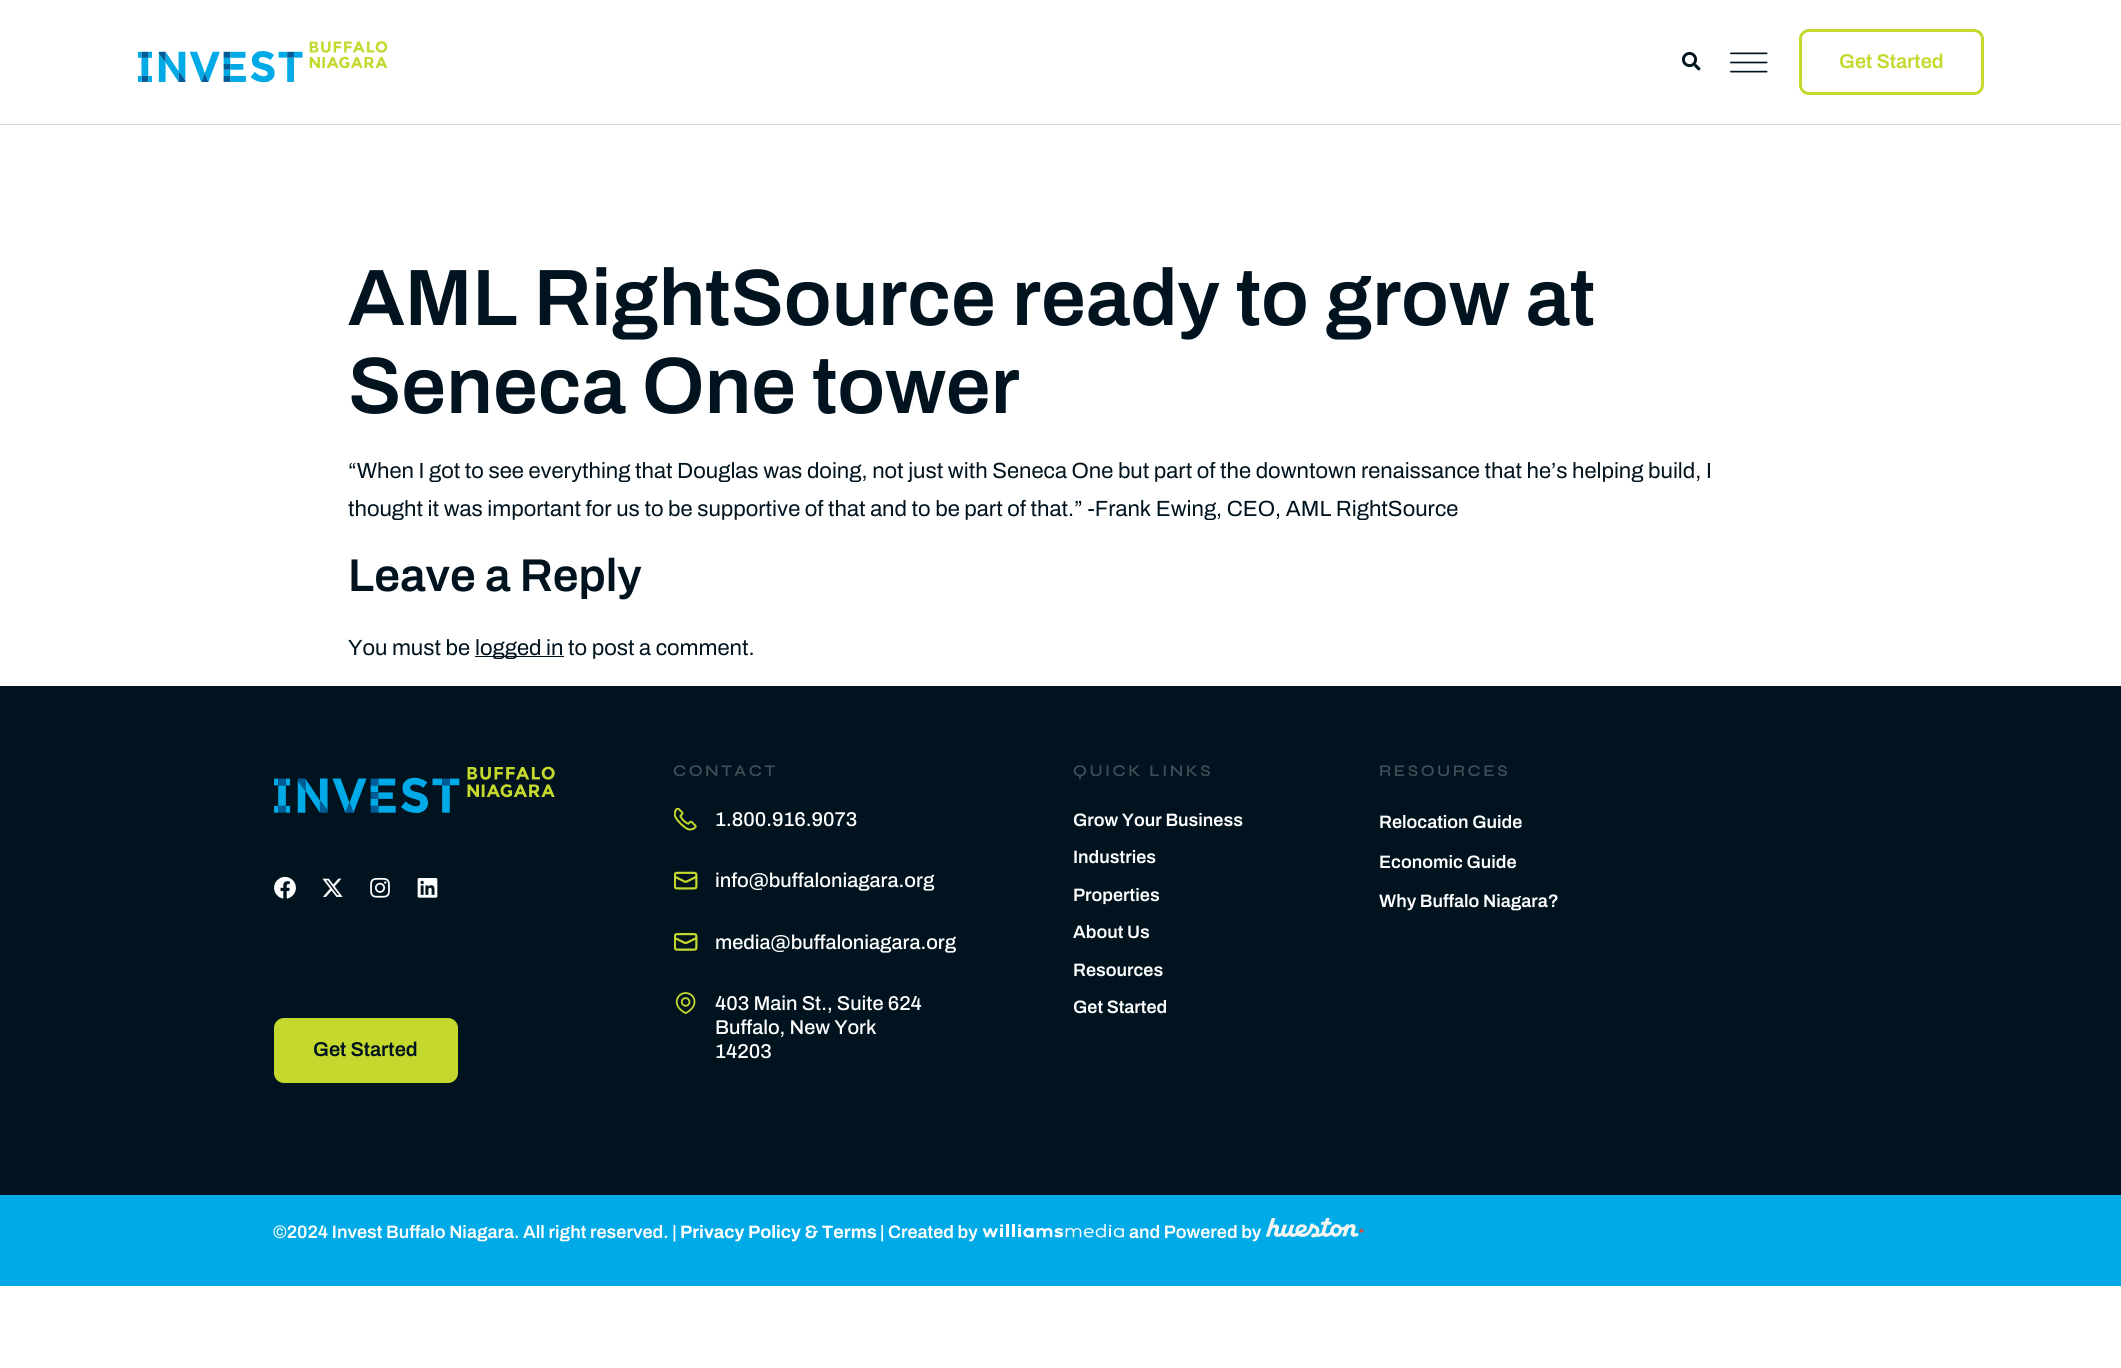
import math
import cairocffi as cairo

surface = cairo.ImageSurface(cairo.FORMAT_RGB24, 2121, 1368)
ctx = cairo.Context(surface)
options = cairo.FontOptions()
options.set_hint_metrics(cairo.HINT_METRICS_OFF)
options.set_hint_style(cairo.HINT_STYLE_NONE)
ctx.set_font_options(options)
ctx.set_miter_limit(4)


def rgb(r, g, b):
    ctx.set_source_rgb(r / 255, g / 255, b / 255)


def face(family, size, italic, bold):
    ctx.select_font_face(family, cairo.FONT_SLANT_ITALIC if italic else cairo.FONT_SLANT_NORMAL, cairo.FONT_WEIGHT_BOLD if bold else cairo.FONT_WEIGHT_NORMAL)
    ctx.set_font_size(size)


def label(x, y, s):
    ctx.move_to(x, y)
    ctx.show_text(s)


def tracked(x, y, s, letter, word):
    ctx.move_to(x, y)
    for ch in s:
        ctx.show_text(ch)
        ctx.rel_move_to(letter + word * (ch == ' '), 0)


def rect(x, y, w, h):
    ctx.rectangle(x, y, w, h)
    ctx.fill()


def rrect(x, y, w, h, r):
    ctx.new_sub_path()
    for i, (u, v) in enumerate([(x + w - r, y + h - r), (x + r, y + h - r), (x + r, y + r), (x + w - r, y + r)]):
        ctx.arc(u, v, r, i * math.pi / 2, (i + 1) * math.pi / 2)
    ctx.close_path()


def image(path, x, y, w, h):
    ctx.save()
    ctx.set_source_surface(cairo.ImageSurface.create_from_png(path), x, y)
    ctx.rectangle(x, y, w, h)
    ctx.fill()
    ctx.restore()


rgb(255, 255, 255)
ctx.paint()
rgb(215, 215, 215)
rect(0, 124, 2121, 1)
image('image0.png', 138, 41, 250, 42)
image('image1.png', 1682, 52, 19, 19)
image('image2.png', 1730, 52, 38, 21)
rrect(1800.5, 30.5, 182, 63, 8.5)
rgb(196, 216, 46)
ctx.set_line_width(3)
ctx.stroke()
face('Archivo SemiBold', 20, 0, 0)
label(1839, 68, 'Get Started')
face('Archivo SemiBold', 80, 0, 0)
rgb(0, 19, 31)
label(348, 325, 'AML RightSource ready to grow at')
label(348, 413, 'Seneca One tower')
face('Archivo', 22, 0, 0)
label(348, 478, '“When I got to see everything that Douglas was doing, not just with Seneca One but part of the downtown renaissance that he’s helping build, I')
label(348, 516, 'thought it was important for us to be supportive of that and to be part of that.” -Frank Ewing, CEO, AML RightSource')
face('Archivo SemiBold', 46, 0, 0)
label(348, 591, 'Leave a Reply')
face('Archivo', 22, 0, 0)
label(348, 655, 'You must be')
rect(475, 656, 89, 1)
label(475, 655, 'logged in to post a comment.')
rect(0, 686, 2121, 509)
face('Syne SemiBold', 16.25, 0, 0)
rgb(64, 78, 87)
tracked(673, 776, 'CONTACT', 2.5, 0)
image('image3.png', 674, 808, 23, 23)
face('Archivo Medium', 20, 0, 0)
rgb(255, 255, 255)
label(715, 826, '1.800.916.9073')
image('image4.png', 674, 871, 24, 19)
label(715, 887, 'info@buffaloniagara.org')
image('image5.png', 674, 933, 24, 18)
label(715, 949, 'media@buffaloniagara.org')
image('image6.png', 675, 992, 21, 22)
label(715, 1010, '403 Main St., Suite 624')
label(715, 1034, 'Buffalo, New York')
label(715, 1058, '14203')
face('Syne SemiBold', 16.25, 0, 0)
rgb(64, 78, 87)
tracked(1073, 776, 'QUICK LINKS', 2.5, 0)
face('Archivo SemiBold', 18, 0, 0)
rgb(255, 255, 255)
label(1073, 826, 'Grow Your Business')
label(1073, 863, 'Industries')
label(1073, 901, 'Properties')
label(1073, 938, 'About Us')
label(1073, 976, 'Resources')
label(1073, 1013, 'Get Started')
face('Syne SemiBold', 16.25, 0, 0)
rgb(64, 78, 87)
tracked(1379, 776, 'RESOURCES', 2.5, 0)
face('Archivo SemiBold', 18, 0, 0)
rgb(255, 255, 255)
label(1379, 828, 'Relocation Guide')
label(1379, 868, 'Economic Guide')
label(1379, 907, 'Why Buffalo Niagara?')
image('image7.png', 274, 766, 281, 47)
image('image8.png', 274, 876, 22, 23)
image('image9.png', 322, 878, 21, 19)
image('image10.png', 370, 877, 20, 21)
image('image11.png', 417, 878, 21, 20)
rgb(196, 216, 46)
rrect(275.5, 1019.5, 181, 62, 8.5)
ctx.fill_preserve()
ctx.stroke()
face('Archivo SemiBold', 20, 0, 0)
rgb(0, 19, 31)
label(313, 1056, 'Get Started')
rgb(0, 170, 231)
rect(0, 1195, 2121, 91)
face('Archivo SemiBold', 18, 0, 0)
rgb(255, 255, 255)
label(273, 1238, '©2024 Invest Buffalo Niagara. All right reserved. |')
face('Archivo', 18, 0, 1)
label(680, 1238, 'Privacy Policy & Terms')
face('Archivo SemiBold', 18, 0, 0)
label(880, 1238, '| Created by')
image('image12.png', 982, 1224, 142, 14)
label(1129, 1238, 'and Powered by')
image('image13.png', 1265, 1218, 100, 20)
surface.write_to_png('render.png')
